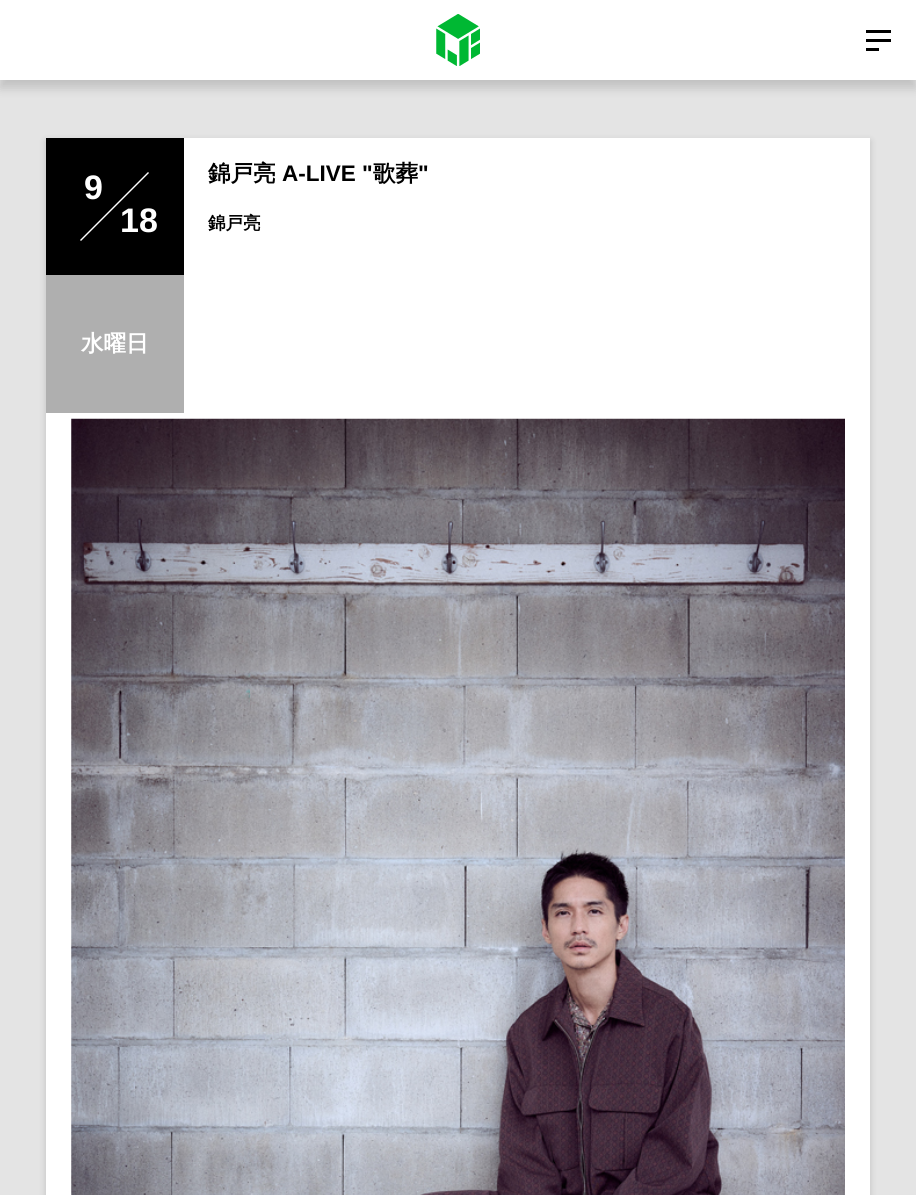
import math
import cairocffi as cairo

surface = cairo.ImageSurface(cairo.FORMAT_RGB24, 916, 1195)
ctx = cairo.Context(surface)
options = cairo.FontOptions()
options.set_hint_metrics(cairo.HINT_METRICS_OFF)
options.set_hint_style(cairo.HINT_STYLE_NONE)
ctx.set_font_options(options)
ctx.set_miter_limit(4)


def rgb(r, g, b):
    ctx.set_source_rgb(r / 255, g / 255, b / 255)


def face(family, size, italic, bold):
    ctx.select_font_face(family, cairo.FONT_SLANT_ITALIC if italic else cairo.FONT_SLANT_NORMAL, cairo.FONT_WEIGHT_BOLD if bold else cairo.FONT_WEIGHT_NORMAL)
    ctx.set_font_size(size)


def label(x, y, s):
    ctx.move_to(x, y)
    ctx.show_text(s)


def rect(x, y, w, h):
    ctx.rectangle(x, y, w, h)
    ctx.fill()


def rrect(x, y, w, h, r):
    ctx.new_sub_path()
    for i, (u, v) in enumerate([(x + w - r, y + h - r), (x + r, y + h - r), (x + r, y + r), (x + w - r, y + r)]):
        ctx.arc(u, v, r, i * math.pi / 2, (i + 1) * math.pi / 2)
    ctx.close_path()


def soft_shadow(x, y, w, h, r, blur, alpha):
    ctx.push_group_with_content(cairo.CONTENT_ALPHA)
    ctx.set_operator(cairo.OPERATOR_SOURCE)
    for i in range(15, -16, -2):
        e = blur * i / 6
        if min(w, h) + 2 * e > 0:
            ctx.set_source_rgba(0, 0, 0, alpha * math.erfc((i - 1) / 8.5) / 2)
            rrect(x - e, y - e, w + 2 * e, h + 2 * e, max(0, min(r + e + blur * .6, min(w, h) / 2 + e)))
            ctx.fill()
    ctx.mask(ctx.pop_group())


def image(path, x, y, w, h):
    ctx.save()
    ctx.set_source_surface(cairo.ImageSurface.create_from_png(path), x, y)
    ctx.rectangle(x, y, w, h)
    ctx.fill()
    ctx.restore()


rgb(228, 228, 228)
ctx.paint()
rgb(0, 0, 0)
soft_shadow(0, 8, 916, 80, 0, 5.5, 0.16)
rgb(255, 255, 255)
rect(0, 0, 916, 80)
image('image0.png', 436, 14, 44, 52)
rgb(0, 0, 0)
rect(866, 30, 25, 3)
rect(866, 39, 25, 3)
rect(866, 48, 13, 3)
rgb(255, 255, 255)
rect(46, 138, 824, 1057)
ctx.save()
ctx.set_fill_rule(cairo.FILL_RULE_EVEN_ODD)
ctx.new_path()
ctx.move_to(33, 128)
ctx.line_to(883, 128)
ctx.line_to(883, 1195)
ctx.line_to(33, 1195)
ctx.close_path()
ctx.move_to(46, 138)
ctx.line_to(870, 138)
ctx.line_to(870, 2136)
ctx.line_to(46, 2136)
ctx.close_path()
ctx.clip()
rgb(0, 0, 0)
soft_shadow(46, 141, 824, 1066, 0, 4, 0.16)
ctx.restore()
rgb(0, 0, 0)
rect(46, 138, 138, 137)
rgb(255, 255, 255)
ctx.new_path()
ctx.move_to(80, 240)
ctx.line_to(148, 172)
ctx.line_to(149, 173)
ctx.line_to(81, 241)
ctx.close_path()
ctx.fill()
face('Liberation Sans', 34, 0, 1)
label(84, 199, '9')
label(120, 232, '18')
rgb(175, 175, 175)
rect(46, 275, 138, 138)
face('WenQuanYi Zen Hei', 22.5, 0, 1)
rgb(255, 255, 255)
label(81, 351, '水曜日')
rgb(0, 0, 0)
label(208, 181, '錦戸亮')
face('Liberation Sans', 22.5, 0, 1)
label(282, 181, 'A-LIVE "')
face('WenQuanYi Zen Hei', 22.5, 0, 1)
label(373, 181, '歌葬')
face('Liberation Sans', 22.5, 0, 1)
label(418, 181, '"')
face('WenQuanYi Zen Hei', 17.5, 0, 1)
label(208, 229, '錦戸亮')
image('image1.png', 71, 418, 774, 777)
surface.write_to_png('render.png')
